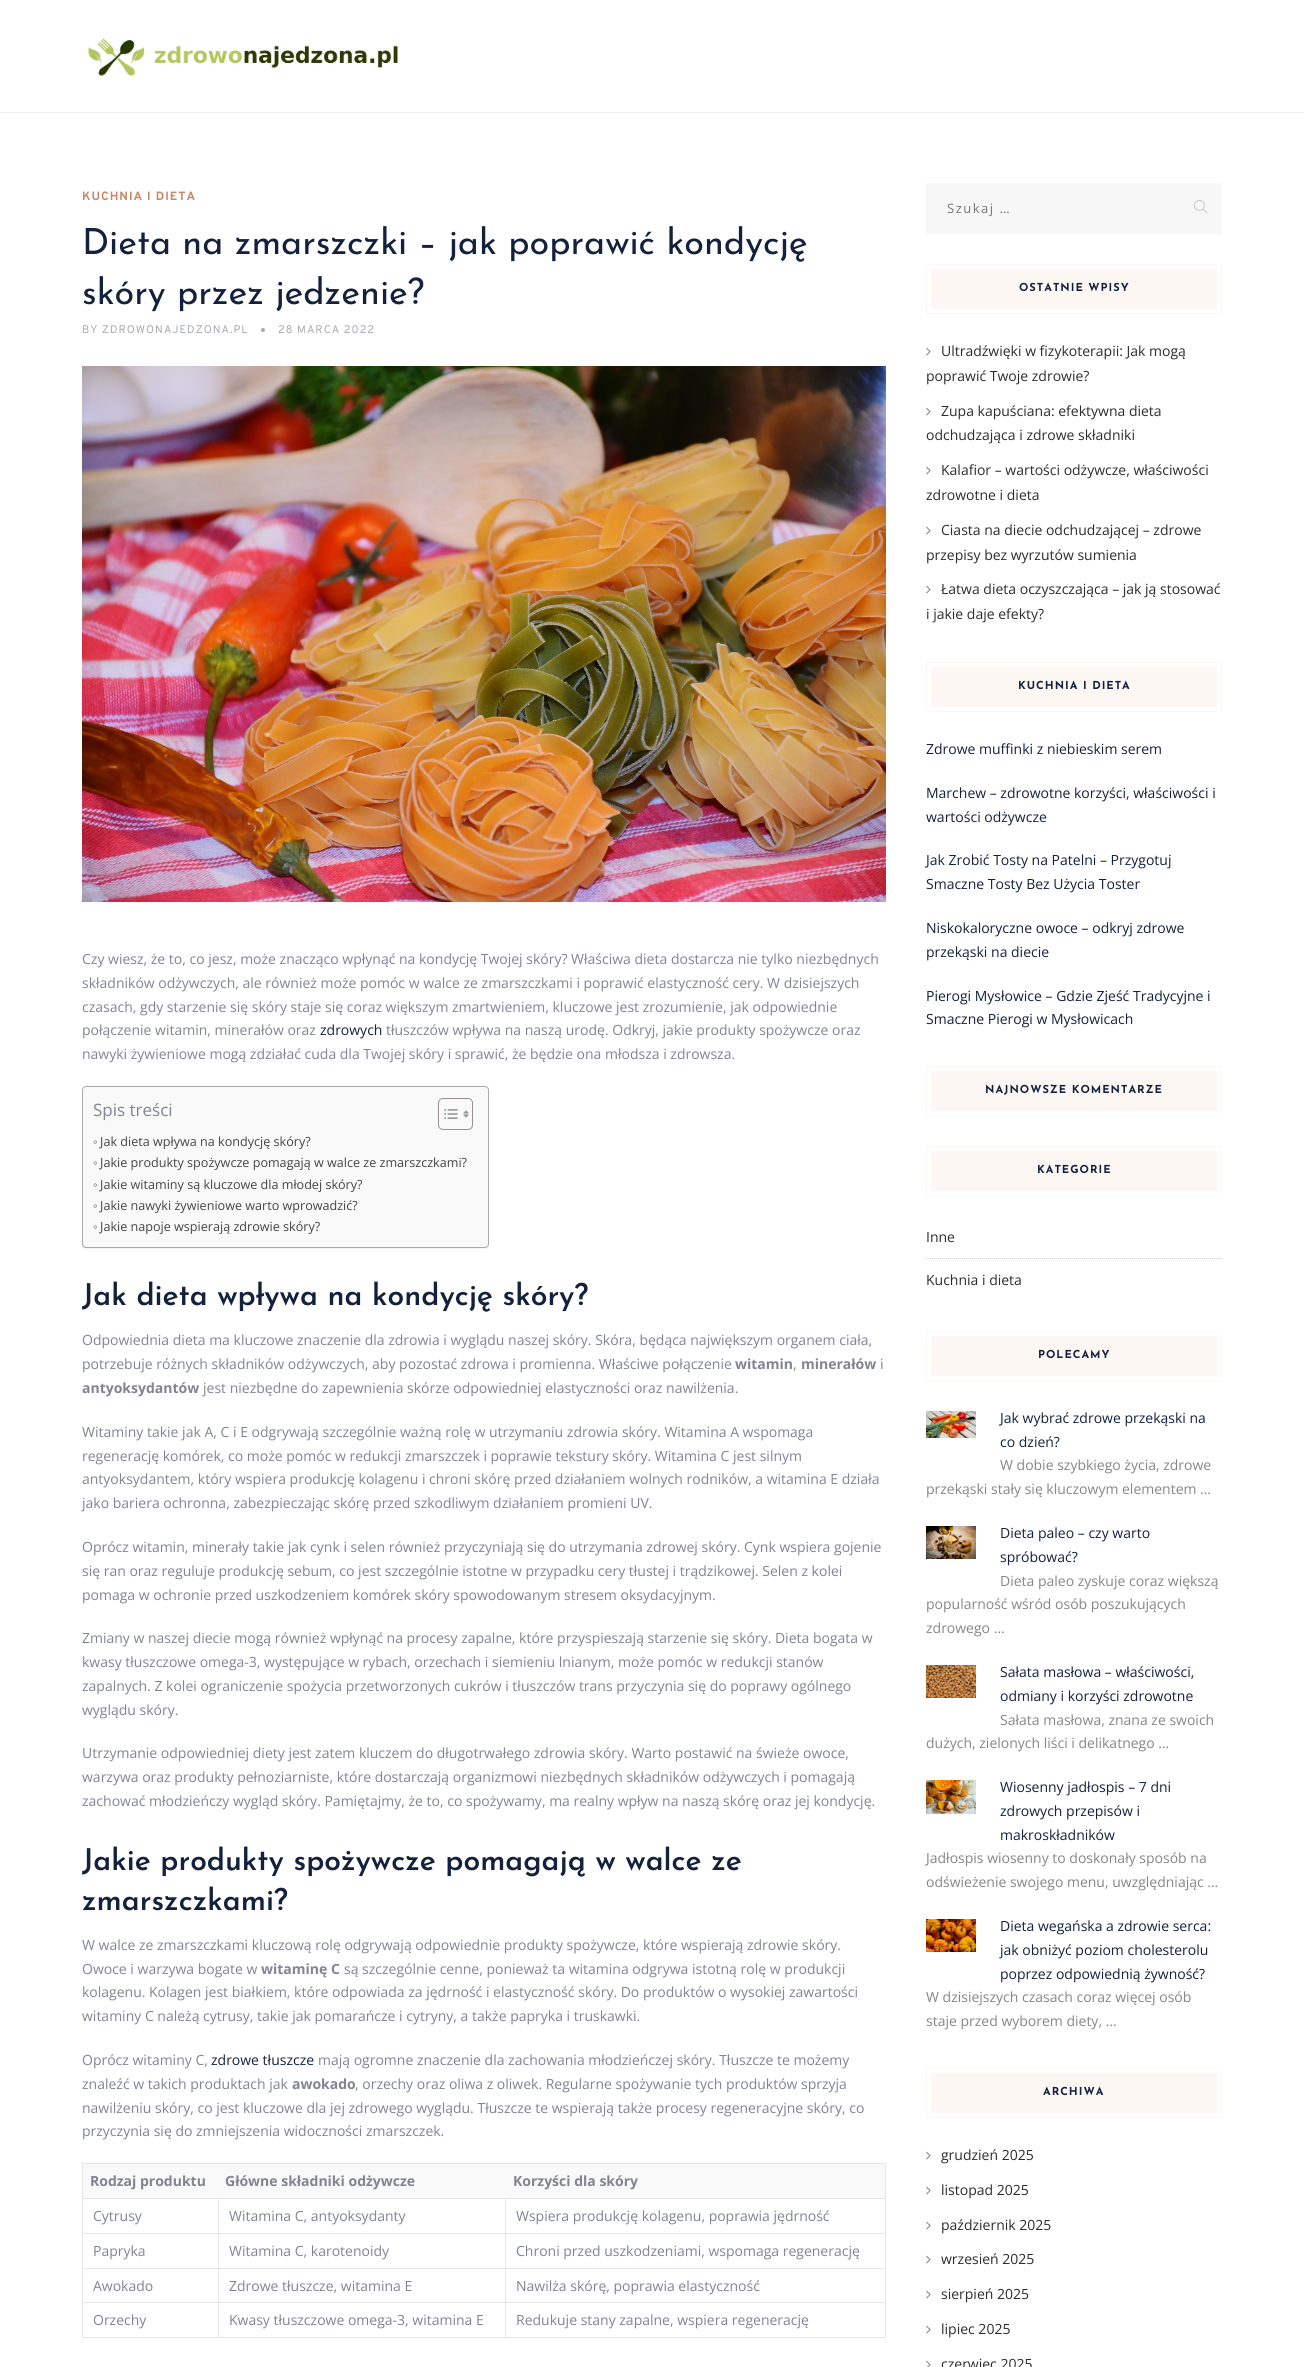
import math
import cairocffi as cairo

surface = cairo.ImageSurface(cairo.FORMAT_RGB24, 1304, 2367)
ctx = cairo.Context(surface)
options = cairo.FontOptions()
options.set_hint_metrics(cairo.HINT_METRICS_OFF)
options.set_hint_style(cairo.HINT_STYLE_NONE)
ctx.set_font_options(options)
ctx.set_miter_limit(4)


def rgb(r, g, b):
    ctx.set_source_rgb(r / 255, g / 255, b / 255)


def face(family, size, italic, bold):
    ctx.select_font_face(family, cairo.FONT_SLANT_ITALIC if italic else cairo.FONT_SLANT_NORMAL, cairo.FONT_WEIGHT_BOLD if bold else cairo.FONT_WEIGHT_NORMAL)
    ctx.set_font_size(size)


def label(x, y, s):
    ctx.move_to(x, y)
    ctx.show_text(s)


def tracked(x, y, s, letter, word):
    ctx.move_to(x, y)
    for ch in s:
        ctx.show_text(ch)
        ctx.rel_move_to(letter + word * (ch == ' '), 0)


def rect(x, y, w, h):
    ctx.rectangle(x, y, w, h)
    ctx.fill()


def rrect(x, y, w, h, r):
    ctx.new_sub_path()
    for i, (u, v) in enumerate([(x + w - r, y + h - r), (x + r, y + h - r), (x + r, y + r), (x + w - r, y + r)]):
        ctx.arc(u, v, r, i * math.pi / 2, (i + 1) * math.pi / 2)
    ctx.close_path()


def soft_shadow(x, y, w, h, r, blur, alpha):
    ctx.push_group_with_content(cairo.CONTENT_ALPHA)
    ctx.set_operator(cairo.OPERATOR_SOURCE)
    for i in range(15, -16, -2):
        e = blur * i / 6
        if min(w, h) + 2 * e > 0:
            ctx.set_source_rgba(0, 0, 0, alpha * math.erfc((i - 1) / 8.5) / 2)
            rrect(x - e, y - e, w + 2 * e, h + 2 * e, max(0, min(r + e + blur * .6, min(w, h) / 2 + e)))
            ctx.fill()
    ctx.mask(ctx.pop_group())


def image(path, x, y, w, h):
    ctx.save()
    ctx.set_source_surface(cairo.ImageSurface.create_from_png(path), x, y)
    ctx.rectangle(x, y, w, h)
    ctx.fill()
    ctx.restore()


rgb(255, 255, 255)
ctx.paint()
image('image0.png', 88, 38, 310, 38)
rgb(238, 238, 238)
rect(0, 112, 1304, 1)
face('Overpass', 12, 0, 1)
rgb(201, 134, 100)
tracked(82, 200, 'KUCHNIA I DIETA', 1, 0)
face('Josefin Sans', 36, 0, 0)
rgb(19, 33, 60)
label(82, 254, 'Dieta na zmarszczki – jak poprawić kondycję')
label(82, 304, 'skóry przez jedzenie?')
face('Overpass', 11, 0, 0)
rgb(168, 170, 178)
tracked(82, 333, 'BY ZDROWONAJEDZONA.PL', 1, 0)
ctx.new_path()
ctx.arc(263, 330, 2, 0, 2 * math.pi)
ctx.fill()
tracked(278, 333, '28 MARCA 2022', 1, 0)
image('image1.png', 82, 366, 804, 536)
face('Open Sans', 14, 0, 0)
rgb(129, 132, 145)
label(82, 964, 'Czy wiesz, że to, co jesz, może znacząco wpłynąć na kondycję Twojej skóry? Właściwa dieta dostarcza nie tylko niezbędnych')
label(82, 988, 'składników odżywczych, ale również może pomóc w walce ze zmarszczkami i poprawić elastyczność cery. W dzisiejszych')
label(82, 1012, 'czasach, gdy starzenie się skóry staje się coraz większym zmartwieniem, kluczowe jest zrozumienie, jak odpowiednie')
label(82, 1035, 'połączenie witamin, minerałów oraz')
rgb(19, 33, 60)
label(320, 1035, 'zdrowych')
rgb(129, 132, 145)
label(386, 1035, 'tłuszczów wpływa na naszą urodę. Odkryj, jakie produkty spożywcze oraz')
label(82, 1059, 'nawyki żywieniowe mogą zdziałać cuda dla Twojej skóry i sprawić, że będzie ona młodsza i zdrowsza.')
rgb(0, 0, 0)
soft_shadow(82, 1087, 407, 162, 4, 0.5, 0.05)
rgb(249, 249, 249)
rrect(82.5, 1086.5, 406, 161, 3.5)
ctx.fill_preserve()
rgb(170, 170, 170)
ctx.set_line_width(1)
ctx.stroke()
face('Open Sans', 17, 0, 0)
rgb(129, 132, 145)
label(93, 1116, 'Spis treści')
rrect(438.5, 1098.5, 34, 31, 4.5)
rgb(153, 145, 145)
ctx.stroke()
image('image2.png', 444, 1109, 14, 10)
image('image3.png', 463, 1110, 6, 8)
face('Liberation Sans', 12.6, 0, 0)
rgb(68, 68, 68)
label(93, 1146, '◦')
face('Open Sans', 12.6, 0, 0)
label(100, 1146, 'Jak dieta wpływa na kondycję skóry?')
face('Liberation Sans', 12.6, 0, 0)
label(93, 1167, '◦')
face('Open Sans', 12.6, 0, 0)
label(100, 1167, 'Jakie produkty spożywcze pomagają w walce ze zmarszczkami?')
face('Liberation Sans', 12.6, 0, 0)
label(93, 1189, '◦')
face('Open Sans', 12.6, 0, 0)
label(100, 1189, 'Jakie witaminy są kluczowe dla młodej skóry?')
face('Liberation Sans', 12.6, 0, 0)
label(93, 1210, '◦')
face('Open Sans', 12.6, 0, 0)
label(100, 1210, 'Jakie nawyki żywieniowe warto wprowadzić?')
face('Liberation Sans', 12.6, 0, 0)
label(93, 1231, '◦')
face('Open Sans', 12.6, 0, 0)
label(100, 1231, 'Jakie napoje wspierają zdrowie skóry?')
face('Josefin Sans SemiBold', 30, 0, 0)
rgb(19, 33, 60)
label(82, 1305, 'Jak dieta wpływa na kondycję skóry?')
face('Open Sans', 14, 0, 0)
rgb(129, 132, 145)
label(82, 1345, 'Odpowiednia dieta ma kluczowe znaczenie dla zdrowia i wyglądu naszej skóry. Skóra, będąca największym organem ciała,')
label(82, 1369, 'potrzebuje różnych składników odżywczych, aby pozostać zdrowa i promienna. Właściwe połączenie')
face('Open Sans', 14, 0, 1)
label(735, 1369, 'witamin')
face('Open Sans', 14, 0, 0)
label(793, 1369, ',')
face('Open Sans', 14, 0, 1)
label(801, 1369, 'minerałów')
face('Open Sans', 14, 0, 0)
label(880, 1369, 'i')
face('Open Sans', 14, 0, 1)
label(82, 1393, 'antyoksydantów')
face('Open Sans', 14, 0, 0)
label(203, 1393, 'jest niezbędne do zapewnienia skórze odpowiedniej elastyczności oraz nawilżenia.')
label(82, 1437, 'Witaminy takie jak A, C i E odgrywają szczególnie ważną rolę w utrzymaniu zdrowia skóry. Witamina A wspomaga')
label(82, 1461, 'regenerację komórek, co może pomóc w redukcji zmarszczek i poprawie tekstury skóry. Witamina C jest silnym')
label(82, 1484, 'antyoksydantem, który wspiera produkcję kolagenu i chroni skórę przed działaniem wolnych rodników, a witamina E działa')
label(82, 1508, 'jako bariera ochronna, zabezpieczając skórę przed szkodliwym działaniem promieni UV.')
label(82, 1552, 'Oprócz witamin, minerały takie jak cynk i selen również przyczyniają się do utrzymania zdrowej skóry. Cynk wspiera gojenie')
label(82, 1576, 'się ran oraz reguluje produkcję sebum, co jest szczególnie istotne w przypadku cery tłustej i trądzikowej. Selen z kolei')
label(82, 1600, 'pomaga w ochronie przed uszkodzeniem komórek skóry spowodowanym stresem oksydacyjnym.')
label(82, 1643, 'Zmiany w naszej diecie mogą również wpłynąć na procesy zapalne, które przyspieszają starzenie się skóry. Dieta bogata w')
label(82, 1667, 'kwasy tłuszczowe omega-3, występujące w rybach, orzechach i siemieniu lnianym, może pomóc w redukcji stanów')
label(82, 1691, 'zapalnych. Z kolei ograniczenie spożycia przetworzonych cukrów i tłuszczów trans przyczynia się do poprawy ogólnego')
label(82, 1715, 'wyglądu skóry.')
label(82, 1758, 'Utrzymanie odpowiedniej diety jest zatem kluczem do długotrwałego zdrowia skóry. Warto postawić na świeże owoce,')
label(82, 1782, 'warzywa oraz produkty pełnoziarniste, które dostarczają organizmowi niezbędnych składników odżywczych i pomagają')
label(82, 1806, 'zachować młodzieńczy wygląd skóry. Pamiętajmy, że to, co spożywamy, ma realny wpływ na naszą skórę oraz jej kondycję.')
face('Josefin Sans SemiBold', 30, 0, 0)
rgb(19, 33, 60)
label(82, 1870, 'Jakie produkty spożywcze pomagają w walce ze')
label(82, 1910, 'zmarszczkami?')
face('Open Sans', 14, 0, 0)
rgb(129, 132, 145)
label(82, 1950, 'W walce ze zmarszczkami kluczową rolę odgrywają odpowiednie produkty spożywcze, które wspierają zdrowie skóry.')
label(82, 1974, 'Owoce i warzywa bogate w')
face('Open Sans', 14, 0, 1)
label(261, 1974, 'witaminę C')
face('Open Sans', 14, 0, 0)
label(344, 1974, 'są szczególnie cenne, ponieważ ta witamina odgrywa istotną rolę w produkcji')
label(82, 1997, 'kolagenu. Kolagen jest białkiem, które odpowiada za jędrność i elastyczność skóry. Do produktów o wysokiej zawartości')
label(82, 2021, 'witaminy C należą cytrusy, takie jak pomarańcze i cytryny, a także papryka i truskawki.')
label(82, 2065, 'Oprócz witaminy C,')
rgb(19, 33, 60)
label(211, 2065, 'zdrowe tłuszcze')
rgb(129, 132, 145)
label(318, 2065, 'mają ogromne znaczenie dla zachowania młodzieńczej skóry. Tłuszcze te możemy')
label(82, 2089, 'znaleźć w takich produktach jak')
face('Open Sans', 14, 0, 1)
label(292, 2089, 'awokado')
face('Open Sans', 14, 0, 0)
label(355, 2089, ', orzechy oraz oliwa z oliwek. Regularne spożywanie tych produktów sprzyja')
label(82, 2113, 'nawilżeniu skóry, co jest kluczowe dla jej zdrowego wyglądu. Tłuszcze te wspierają także procesy regeneracyjne skóry, co')
label(82, 2136, 'przyczynia się do zmniejszenia widoczności zmarszczek.')
rgb(230, 230, 230)
rect(82, 2163, 804, 1)
rect(82, 2198, 804, 1)
rect(82, 2233, 804, 1)
rect(82, 2268, 804, 1)
rect(82, 2302, 804, 1)
rect(885, 2302, 1, 36)
rect(885, 2268, 1, 35)
rect(885, 2233, 1, 36)
rect(885, 2198, 1, 36)
rect(885, 2163, 1, 36)
rect(82, 2337, 804, 1)
rect(82, 2302, 1, 36)
rect(82, 2268, 1, 35)
rect(82, 2233, 1, 36)
rect(82, 2198, 1, 36)
rect(82, 2163, 1, 36)
rgb(249, 249, 249)
rect(83, 2164, 802, 34)
face('Open Sans', 14, 0, 1)
rgb(129, 132, 145)
label(90, 2186, 'Rodzaj produktu')
label(225, 2186, 'Główne składniki odżywcze')
label(513, 2186, 'Korzyści dla skóry')
face('Open Sans', 14, 0, 0)
label(93, 2221, 'Cytrusy')
label(229, 2221, 'Witamina C, antyoksydanty')
label(516, 2221, 'Wspiera produkcję kolagenu, poprawia jędrność')
label(93, 2256, 'Papryka')
label(229, 2256, 'Witamina C, karotenoidy')
label(516, 2256, 'Chroni przed uszkodzeniami, wspomaga regenerację')
label(93, 2291, 'Awokado')
label(229, 2291, 'Zdrowe tłuszcze, witamina E')
label(516, 2291, 'Nawilża skórę, poprawia elastyczność')
rgb(230, 230, 230)
rect(218, 2198, 1, 140)
rgb(129, 132, 145)
label(93, 2325, 'Orzechy')
rgb(230, 230, 230)
rect(505, 2198, 1, 140)
rgb(129, 132, 145)
label(229, 2325, 'Kwasy tłuszczowe omega-3, witamina E')
label(516, 2325, 'Redukuje stany zapalne, wspiera regenerację')
rgb(247, 247, 247)
ctx.rectangle(926.5, 183.5, 295, 50)
ctx.fill_preserve()
rgb(247, 248, 249)
ctx.stroke()
face('Open Sans', 13, 0, 0)
rgb(117, 117, 117)
tracked(947, 213, 'Szukaj …', 1.5, 0)
image('image4.png', 1194, 200, 14, 14)
ctx.rectangle(926.5, 264.5, 295, 49)
rgb(253, 247, 244)
ctx.stroke()
rect(931, 269, 286, 40)
face('Josefin Sans', 11, 0, 1)
rgb(19, 33, 60)
tracked(1019, 291, 'OSTATNIE WPISY', 1, 0)
image('image5.png', 926, 347, 5, 9)
face('Open Sans', 14, 0, 0)
rgb(43, 44, 46)
label(941, 356, 'Ultradźwięki w fizykoterapii: Jak mogą')
label(926, 381, 'poprawić Twoje zdrowie?')
image('image5.png', 926, 407, 5, 9)
label(941, 416, 'Zupa kapuściana: efektywna dieta')
label(926, 440, 'odchudzająca i zdrowe składniki')
image('image5.png', 926, 466, 5, 9)
label(941, 475, 'Kalafior – wartości odżywcze, właściwości')
label(926, 500, 'zdrowotne i dieta')
image('image5.png', 926, 526, 5, 9)
label(941, 535, 'Ciasta na diecie odchudzającej – zdrowe')
label(926, 560, 'przepisy bez wyrzutów sumienia')
image('image5.png', 926, 585, 5, 9)
label(941, 594, 'Łatwa dieta oczyszczająca – jak ją stosować')
label(926, 619, 'i jakie daje efekty?')
ctx.rectangle(926.5, 662.5, 295, 49)
rgb(253, 247, 244)
ctx.stroke()
rect(931, 667, 286, 40)
face('Josefin Sans', 11, 0, 1)
rgb(19, 33, 60)
tracked(1018, 689, 'KUCHNIA I DIETA', 1, 0)
face('Open Sans', 14, 0, 0)
label(926, 754, 'Zdrowe muffinki z niebieskim serem')
label(926, 798, 'Marchew – zdrowotne korzyści, właściwości i')
label(926, 822, 'wartości odżywcze')
label(926, 865, 'Jak Zrobić Tosty na Patelni – Przygotuj')
label(926, 889, 'Smaczne Tosty Bez Użycia Toster')
label(926, 933, 'Niskokaloryczne owoce – odkryj zdrowe')
label(926, 957, 'przekąski na diecie')
label(926, 1001, 'Pierogi Mysłowice – Gdzie Zjeść Tradycyjne i')
label(926, 1024, 'Smaczne Pierogi w Mysłowicach')
ctx.rectangle(926.5, 1066.5, 295, 49)
rgb(253, 247, 244)
ctx.stroke()
rect(931, 1071, 286, 40)
face('Josefin Sans', 11, 0, 1)
rgb(19, 33, 60)
tracked(985, 1093, 'NAJNOWSZE KOMENTARZE', 1, 0)
ctx.rectangle(926.5, 1146.5, 295, 49)
rgb(253, 247, 244)
ctx.stroke()
rect(931, 1151, 286, 40)
rgb(19, 33, 60)
tracked(1037, 1173, 'KATEGORIE', 1, 0)
face('Open Sans', 14, 0, 0)
rgb(43, 44, 46)
label(926, 1242, 'Inne')
ctx.new_path()
ctx.move_to(926, 1258.5)
ctx.line_to(1222, 1258.5)
rgb(209, 209, 209)
ctx.set_dash([1, 1])
ctx.stroke()
rgb(43, 44, 46)
label(926, 1285, 'Kuchnia i dieta')
ctx.rectangle(926.5, 1331.5, 295, 49)
rgb(253, 247, 244)
ctx.set_dash([])
ctx.stroke()
rect(931, 1336, 286, 40)
face('Josefin Sans', 11, 0, 1)
rgb(19, 33, 60)
tracked(1038, 1358, 'POLECAMY', 1, 0)
image('image6.png', 926, 1411, 50, 27)
face('Open Sans', 14, 0, 0)
label(1000, 1423, 'Jak wybrać zdrowe przekąski na')
label(1000, 1447, 'co dzień?')
rgb(134, 134, 134)
label(1000, 1470, 'W dobie szybkiego życia, zdrowe')
label(926, 1494, 'przekąski stały się kluczowym elementem …')
image('image7.png', 926, 1526, 50, 33)
rgb(19, 33, 60)
label(1000, 1538, 'Dieta paleo – czy warto')
label(1000, 1562, 'spróbować?')
rgb(134, 134, 134)
label(1000, 1586, 'Dieta paleo zyskuje coraz większą')
label(926, 1609, 'popularność wśród osób poszukujących')
label(926, 1633, 'zdrowego …')
image('image8.png', 926, 1665, 50, 33)
rgb(19, 33, 60)
label(1000, 1677, 'Sałata masłowa – właściwości,')
label(1000, 1701, 'odmiany i korzyści zdrowotne')
rgb(134, 134, 134)
label(1000, 1725, 'Sałata masłowa, znana ze swoich')
label(926, 1748, 'dużych, zielonych liści i delikatnego …')
image('image9.png', 926, 1780, 50, 34)
rgb(19, 33, 60)
label(1000, 1792, 'Wiosenny jadłospis – 7 dni')
label(1000, 1816, 'zdrowych przepisów i')
label(1000, 1840, 'makroskładników')
rgb(134, 134, 134)
label(926, 1863, 'Jadłospis wiosenny to doskonały sposób na')
label(926, 1887, 'odświeżenie swojego menu, uwzględniając …')
image('image10.png', 926, 1919, 50, 33)
rgb(19, 33, 60)
label(1000, 1931, 'Dieta wegańska a zdrowie serca:')
label(1000, 1955, 'jak obniżyć poziom cholesterolu')
label(1000, 1979, 'poprzez odpowiednią żywność?')
rgb(134, 134, 134)
label(926, 2002, 'W dzisiejszych czasach coraz więcej osób')
label(926, 2026, 'staje przed wyborem diety, …')
ctx.rectangle(926.5, 2068.5, 295, 49)
rgb(253, 247, 244)
ctx.stroke()
rect(931, 2073, 286, 40)
face('Josefin Sans', 11, 0, 1)
rgb(19, 33, 60)
tracked(1043, 2095, 'ARCHIWA', 1, 0)
image('image5.png', 926, 2151, 5, 9)
face('Open Sans', 14, 0, 0)
rgb(43, 44, 46)
label(941, 2160, 'grudzień 2025')
image('image5.png', 926, 2186, 5, 9)
label(941, 2195, 'listopad 2025')
image('image5.png', 926, 2221, 5, 9)
label(941, 2230, 'październik 2025')
image('image5.png', 926, 2255, 5, 9)
label(941, 2264, 'wrzesień 2025')
image('image5.png', 926, 2290, 5, 9)
label(941, 2299, 'sierpień 2025')
image('image5.png', 926, 2325, 5, 9)
label(941, 2334, 'lipiec 2025')
image('image11.png', 926, 2360, 5, 7)
label(941, 2369, 'czerwiec 2025')
surface.write_to_png('render.png')
